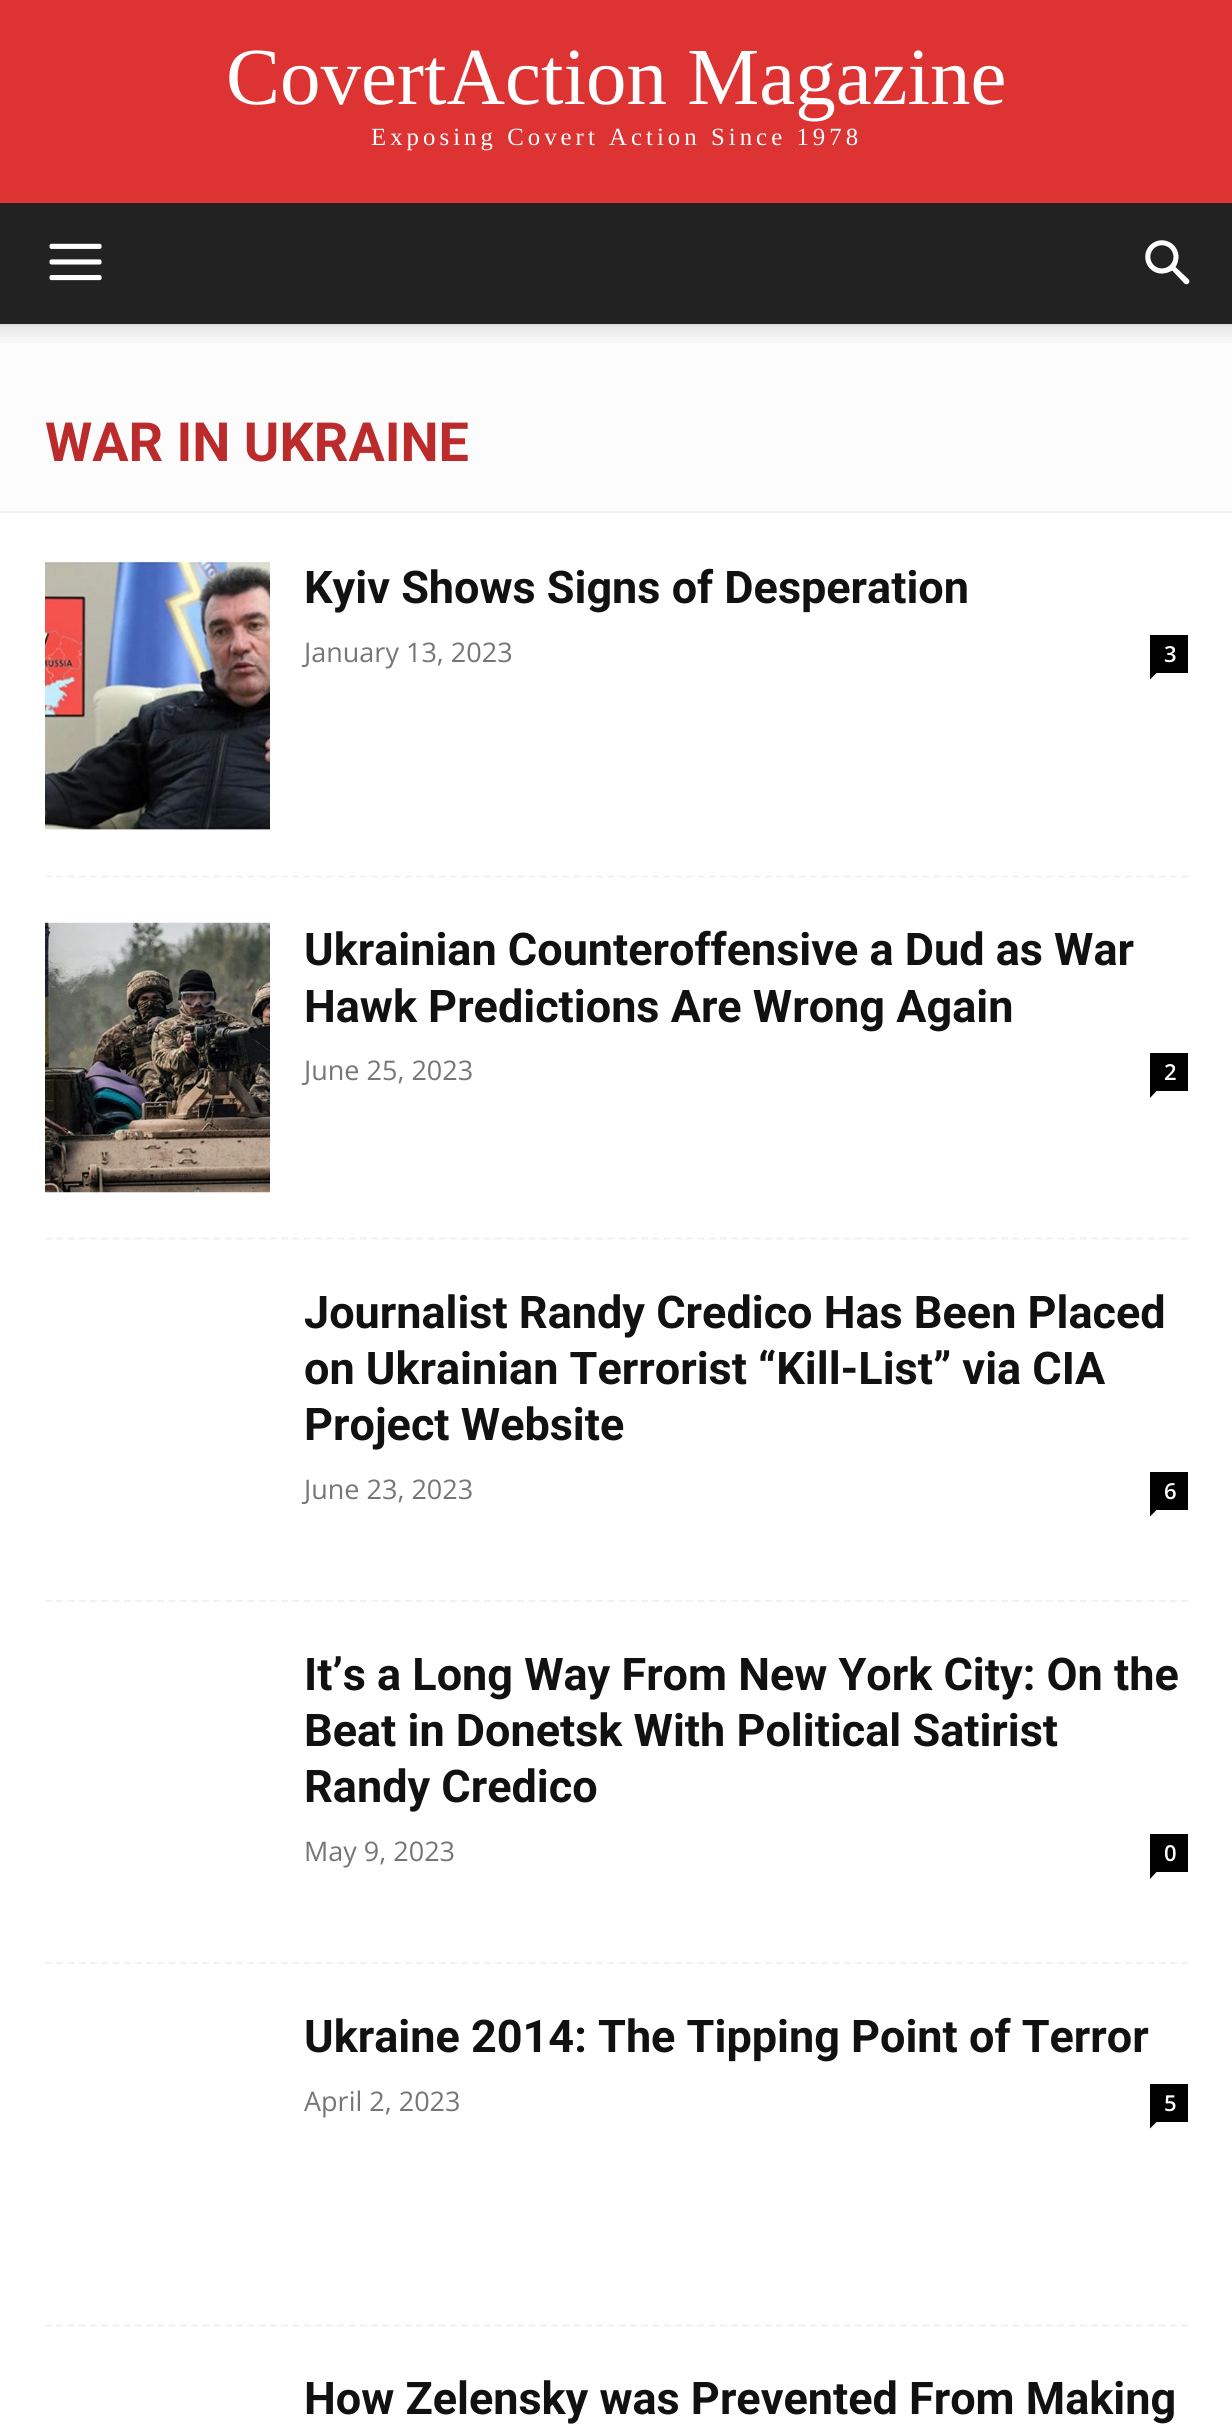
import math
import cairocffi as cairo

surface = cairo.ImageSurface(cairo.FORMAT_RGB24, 1232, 2430)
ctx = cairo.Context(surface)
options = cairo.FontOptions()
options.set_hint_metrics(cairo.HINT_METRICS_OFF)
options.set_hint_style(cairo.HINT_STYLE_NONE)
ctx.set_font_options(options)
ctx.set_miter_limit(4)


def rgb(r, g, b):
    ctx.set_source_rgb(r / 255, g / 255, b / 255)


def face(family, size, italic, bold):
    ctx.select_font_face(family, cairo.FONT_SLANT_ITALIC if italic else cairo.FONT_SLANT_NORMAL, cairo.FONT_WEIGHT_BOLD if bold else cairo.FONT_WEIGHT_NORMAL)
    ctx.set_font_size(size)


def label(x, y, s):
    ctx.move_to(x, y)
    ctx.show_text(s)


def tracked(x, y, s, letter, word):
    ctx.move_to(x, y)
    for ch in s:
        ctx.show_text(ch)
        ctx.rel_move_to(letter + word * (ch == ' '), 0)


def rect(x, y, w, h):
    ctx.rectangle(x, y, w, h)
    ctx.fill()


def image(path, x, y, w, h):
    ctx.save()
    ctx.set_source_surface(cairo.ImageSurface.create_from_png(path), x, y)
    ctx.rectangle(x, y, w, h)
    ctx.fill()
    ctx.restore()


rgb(255, 255, 255)
ctx.paint()
rgb(221, 51, 51)
rect(0, 0, 1232, 203)
face('Liberation Serif', 81, 0, 0)
rgb(255, 255, 255)
label(226, 104, 'CovertAction Magazine')
face('Liberation Serif', 24.75, 0, 0)
tracked(371, 145, 'Exposing Covert Action Since 1978', 4.05, 0)
rgb(34, 34, 34)
rect(0, 203, 1232, 121)
image('image0.png', 49, 243, 53, 38)
image('image1.png', 1145, 240, 45, 45)
rgb(252, 252, 252)
rect(0, 326, 1232, 185)
rgb(242, 242, 242)
rect(0, 324, 1232, 2)
image('image2.png', 0, 324, 1232, 19)
rect(0, 511, 1232, 2)
face('Roboto', 54, 0, 1)
rgb(188, 43, 43)
label(45, 461, 'WAR IN UKRAINE')
ctx.new_path()
ctx.move_to(45, 876.5)
ctx.line_to(1188, 876.5)
rgb(242, 242, 242)
ctx.set_line_width(2.2)
ctx.set_dash([6.75, 4.5])
ctx.stroke()
image('image3.png', 45, 560, 225, 270)
face('Roboto', 45, 0, 1)
rgb(17, 17, 17)
label(304, 603, 'Kyiv Shows Signs of Desperation')
face('Open Sans', 27, 0, 0)
rgb(118, 118, 118)
label(304, 662, 'January 13, 2023')
rgb(0, 0, 0)
rect(1150, 635, 38, 38)
face('Open Sans SemiBold', 22, 0, 0)
rgb(255, 255, 255)
label(1164, 662, '3')
rgb(0, 0, 0)
ctx.new_path()
ctx.move_to(1150, 673)
ctx.line_to(1156.5, 673)
ctx.line_to(1150, 679.5)
ctx.close_path()
ctx.fill()
ctx.new_path()
ctx.move_to(45, 1238.5)
ctx.line_to(1188, 1238.5)
rgb(242, 242, 242)
ctx.stroke()
image('image4.png', 45, 922, 225, 271)
face('Roboto', 45, 0, 1)
rgb(17, 17, 17)
label(304, 965, 'Ukrainian Counteroffensive a Dud as War')
label(304, 1022, 'Hawk Predictions Are Wrong Again')
face('Open Sans', 27, 0, 0)
rgb(118, 118, 118)
label(304, 1080, 'June 25, 2023')
rgb(0, 0, 0)
rect(1150, 1053, 38, 38)
face('Open Sans SemiBold', 22, 0, 0)
rgb(255, 255, 255)
label(1164, 1080, '2')
rgb(0, 0, 0)
ctx.new_path()
ctx.move_to(1150, 1091)
ctx.line_to(1156.5, 1091)
ctx.line_to(1150, 1098)
ctx.close_path()
ctx.fill()
ctx.new_path()
ctx.move_to(45, 1601)
ctx.line_to(1188, 1601)
rgb(242, 242, 242)
ctx.stroke()
face('Roboto', 45, 0, 1)
rgb(17, 17, 17)
label(304, 1328, 'Journalist Randy Credico Has Been Placed')
label(304, 1384, 'on Ukrainian Terrorist “Kill-List” via CIA')
label(304, 1440, 'Project Website')
face('Open Sans', 27, 0, 0)
rgb(118, 118, 118)
label(304, 1499, 'June 23, 2023')
rgb(0, 0, 0)
rect(1150, 1472, 38, 38)
face('Open Sans SemiBold', 22, 0, 0)
rgb(255, 255, 255)
label(1164, 1499, '6')
rgb(0, 0, 0)
ctx.new_path()
ctx.move_to(1150, 1510)
ctx.line_to(1156.5, 1510)
ctx.line_to(1150, 1516.5)
ctx.close_path()
ctx.fill()
ctx.new_path()
ctx.move_to(45, 1963)
ctx.line_to(1188, 1963)
rgb(242, 242, 242)
ctx.stroke()
face('Roboto', 45, 0, 1)
rgb(17, 17, 17)
label(304, 1690, 'It’s a Long Way From New York City: On the')
label(304, 1746, 'Beat in Donetsk With Political Satirist')
label(304, 1802, 'Randy Credico')
face('Open Sans', 27, 0, 0)
rgb(118, 118, 118)
label(304, 1861, 'May 9, 2023')
rgb(0, 0, 0)
rect(1150, 1834, 38, 38)
face('Open Sans SemiBold', 22, 0, 0)
rgb(255, 255, 255)
label(1164, 1861, '0')
rgb(0, 0, 0)
ctx.new_path()
ctx.move_to(1150, 1872)
ctx.line_to(1156.5, 1872)
ctx.line_to(1150, 1879)
ctx.close_path()
ctx.fill()
ctx.new_path()
ctx.move_to(45, 2325.5)
ctx.line_to(1188, 2325.5)
rgb(242, 242, 242)
ctx.stroke()
face('Roboto', 45, 0, 1)
rgb(17, 17, 17)
label(304, 2052, 'Ukraine 2014: The Tipping Point of Terror')
face('Open Sans', 27, 0, 0)
rgb(118, 118, 118)
label(304, 2111, 'April 2, 2023')
rgb(0, 0, 0)
rect(1150, 2084, 38, 38)
face('Open Sans SemiBold', 22, 0, 0)
rgb(255, 255, 255)
label(1164, 2111, '5')
rgb(0, 0, 0)
ctx.new_path()
ctx.move_to(1150, 2122)
ctx.line_to(1156.5, 2122)
ctx.line_to(1150, 2128.5)
ctx.close_path()
ctx.fill()
face('Roboto', 45, 0, 1)
rgb(17, 17, 17)
label(304, 2414, 'How Zelensky was Prevented From Making')
surface.write_to_png('render.png')
